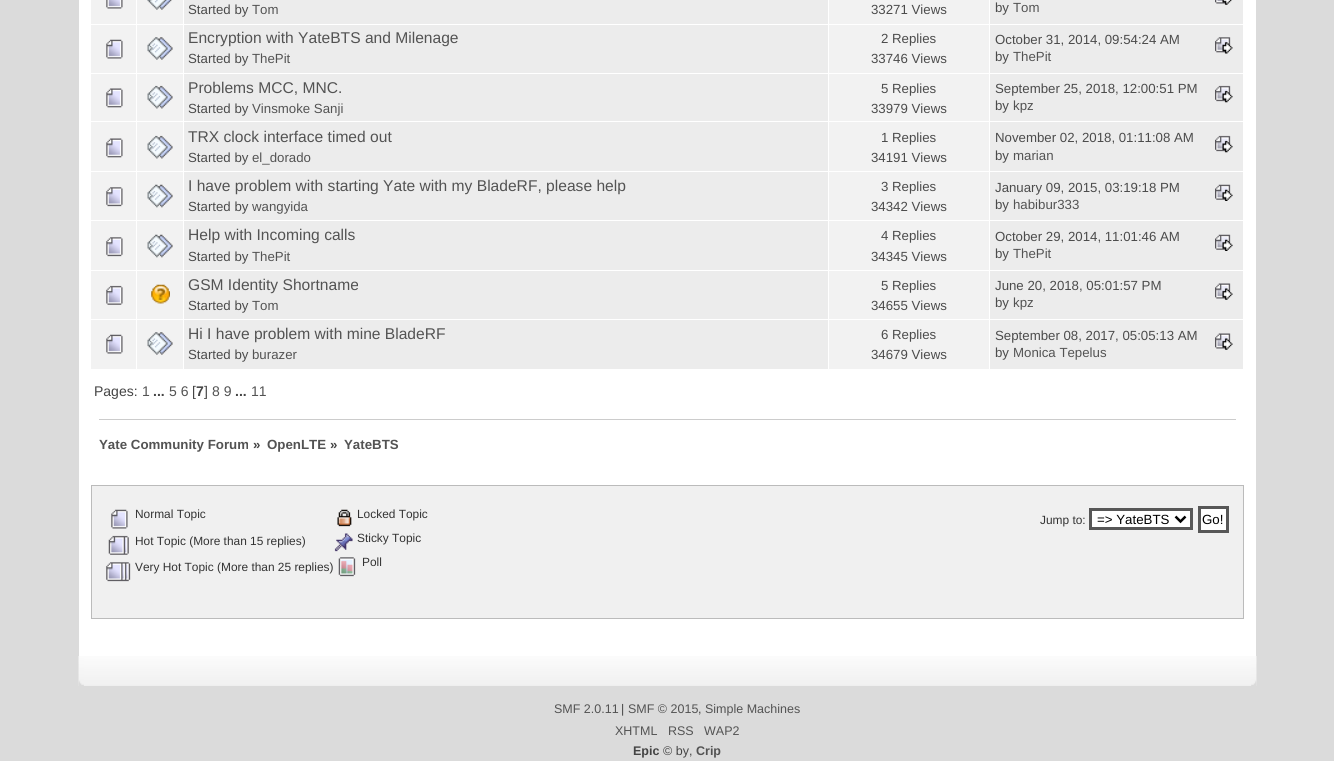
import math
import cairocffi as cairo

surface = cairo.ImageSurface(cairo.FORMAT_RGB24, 1334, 761)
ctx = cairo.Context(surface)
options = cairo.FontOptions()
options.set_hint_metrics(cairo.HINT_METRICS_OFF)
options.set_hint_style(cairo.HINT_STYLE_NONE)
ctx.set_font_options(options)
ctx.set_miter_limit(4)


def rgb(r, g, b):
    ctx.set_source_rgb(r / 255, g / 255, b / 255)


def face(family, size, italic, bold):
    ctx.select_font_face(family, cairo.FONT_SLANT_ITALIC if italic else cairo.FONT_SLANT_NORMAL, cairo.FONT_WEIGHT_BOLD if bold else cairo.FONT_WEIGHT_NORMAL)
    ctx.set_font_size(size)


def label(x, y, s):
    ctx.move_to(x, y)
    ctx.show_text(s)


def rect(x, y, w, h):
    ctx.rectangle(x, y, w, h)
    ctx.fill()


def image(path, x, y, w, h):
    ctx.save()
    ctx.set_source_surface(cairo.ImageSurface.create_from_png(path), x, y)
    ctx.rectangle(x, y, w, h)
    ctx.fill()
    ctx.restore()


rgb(219, 219, 219)
ctx.paint()
rgb(255, 255, 255)
rect(79, 0, 1177, 656)
rgb(242, 242, 242)
rect(91, 0, 92, 24)
image('image0.png', 106, 0, 17, 9)
image('image1.png', 147, 0, 25, 10)
rgb(236, 236, 236)
rect(184, 0, 644, 24)
face('Liberation Sans', 13.25, 0, 0)
rgb(75, 75, 75)
label(188, 14, 'Started by')
rgb(83, 83, 83)
label(252, 14, 'Tom')
rgb(242, 242, 242)
rect(829, 0, 160, 24)
rgb(75, 75, 75)
label(871, 14, '33271 Views')
rgb(236, 236, 236)
rect(990, 0, 253, 24)
rgb(75, 75, 75)
label(995, 12, 'by')
rgb(83, 83, 83)
label(1013, 12, 'Tom')
image('image2.png', 1215, 0, 17, 5)
rgb(242, 242, 242)
rect(91, 25, 92, 48)
image('image3.png', 106, 39, 17, 20)
rgb(236, 236, 236)
rect(184, 25, 644, 48)
face('Liberation Sans', 15.6, 0, 0)
rgb(83, 83, 83)
label(188, 43, 'Encryption with YateBTS and Milenage')
face('Liberation Sans', 13.25, 0, 0)
rgb(75, 75, 75)
label(188, 63, 'Started by')
rgb(83, 83, 83)
label(252, 63, 'ThePit')
rgb(242, 242, 242)
rect(829, 25, 160, 48)
rgb(75, 75, 75)
label(881, 43, '2 Replies')
label(871, 63, '33746 Views')
rgb(236, 236, 236)
rect(990, 25, 253, 48)
rgb(75, 75, 75)
label(995, 44, 'October 31, 2014, 09:54:24 AM')
image('image4.png', 1215, 37, 18, 17)
label(995, 61, 'by')
rgb(83, 83, 83)
label(1013, 61, 'ThePit')
image('image5.png', 147, 37, 26, 23)
rgb(242, 242, 242)
rect(91, 74, 92, 49)
rgb(236, 236, 236)
rect(184, 74, 644, 97)
rgb(242, 242, 242)
rect(829, 74, 160, 97)
rgb(236, 236, 236)
rect(990, 74, 253, 97)
rgb(242, 242, 242)
rect(91, 123, 92, 48)
rect(91, 172, 92, 48)
rect(91, 221, 92, 49)
rect(91, 271, 92, 48)
rect(91, 320, 92, 49)
rgb(255, 255, 255)
rect(136, 121, 1, 249)
rect(136, 121, 1108, 1)
rect(136, 0, 1, 123)
rect(91, 121, 47, 1)
image('image6.png', 106, 88, 17, 20)
face('Liberation Sans', 15.6, 0, 0)
rgb(83, 83, 83)
label(188, 93, 'Problems MCC, MNC.')
face('Liberation Sans', 13.25, 0, 0)
rgb(75, 75, 75)
label(188, 113, 'Started by')
rgb(83, 83, 83)
label(252, 113, 'Vinsmoke Sanji')
rgb(75, 75, 75)
label(881, 93, '5 Replies')
label(871, 113, '33979 Views')
label(995, 93, 'September 25, 2018, 12:00:51 PM')
image('image7.png', 1215, 85, 18, 18)
label(995, 110, 'by')
rgb(83, 83, 83)
label(1013, 110, 'kpz')
image('image8.png', 147, 85, 26, 24)
image('image6.png', 106, 138, 17, 20)
face('Liberation Sans', 15.6, 0, 0)
label(188, 142, 'TRX clock interface timed out')
face('Liberation Sans', 13.25, 0, 0)
rgb(75, 75, 75)
label(188, 162, 'Started by')
rgb(83, 83, 83)
label(252, 162, 'el_dorado')
rgb(75, 75, 75)
label(881, 142, '1 Replies')
label(871, 162, '34191 Views')
label(995, 142, 'November 02, 2018, 01:11:08 AM')
image('image7.png', 1215, 135, 18, 18)
label(995, 160, 'by')
rgb(83, 83, 83)
label(1013, 160, 'marian')
image('image8.png', 147, 135, 26, 24)
image('image9.png', 106, 187, 17, 20)
rgb(236, 236, 236)
rect(184, 172, 644, 48)
face('Liberation Sans', 15.6, 0, 0)
rgb(83, 83, 83)
label(188, 191, 'I have problem with starting Yate with my BladeRF, please help')
face('Liberation Sans', 13.25, 0, 0)
rgb(75, 75, 75)
label(188, 211, 'Started by')
rgb(83, 83, 83)
label(252, 211, 'wangyida')
rgb(242, 242, 242)
rect(829, 172, 160, 48)
rgb(75, 75, 75)
label(881, 191, '3 Replies')
label(871, 211, '34342 Views')
rgb(236, 236, 236)
rect(990, 172, 253, 48)
rgb(75, 75, 75)
label(995, 192, 'January 09, 2015, 03:19:18 PM')
image('image10.png', 1215, 184, 18, 17)
label(995, 209, 'by')
rgb(83, 83, 83)
label(1013, 209, 'habibur333')
image('image11.png', 147, 184, 26, 24)
image('image9.png', 106, 237, 17, 20)
rgb(236, 236, 236)
rect(184, 221, 644, 49)
face('Liberation Sans', 15.6, 0, 0)
rgb(83, 83, 83)
label(188, 240, 'Help with Incoming calls')
face('Liberation Sans', 13.25, 0, 0)
rgb(75, 75, 75)
label(188, 261, 'Started by')
rgb(83, 83, 83)
label(252, 261, 'ThePit')
rgb(242, 242, 242)
rect(829, 221, 160, 49)
rgb(75, 75, 75)
label(881, 240, '4 Replies')
label(871, 261, '34345 Views')
rgb(236, 236, 236)
rect(990, 221, 253, 49)
rgb(75, 75, 75)
label(995, 241, 'October 29, 2014, 11:01:46 AM')
image('image10.png', 1215, 234, 18, 17)
label(995, 258, 'by')
rgb(83, 83, 83)
label(1013, 258, 'ThePit')
image('image11.png', 147, 234, 26, 24)
image('image12.png', 106, 285, 17, 20)
rgb(236, 236, 236)
rect(184, 271, 644, 48)
face('Liberation Sans', 15.6, 0, 0)
rgb(83, 83, 83)
label(188, 290, 'GSM Identity Shortname')
face('Liberation Sans', 13.25, 0, 0)
rgb(75, 75, 75)
label(188, 310, 'Started by')
rgb(83, 83, 83)
label(252, 310, 'Tom')
rgb(242, 242, 242)
rect(829, 271, 160, 48)
rgb(75, 75, 75)
label(881, 290, '5 Replies')
label(871, 310, '34655 Views')
rgb(236, 236, 236)
rect(990, 271, 253, 48)
rgb(75, 75, 75)
label(995, 290, 'June 20, 2018, 05:01:57 PM')
image('image13.png', 1215, 283, 18, 17)
label(995, 307, 'by')
rgb(83, 83, 83)
label(1013, 307, 'kpz')
image('image14.png', 151, 284, 19, 20)
image('image3.png', 106, 334, 17, 20)
rgb(236, 236, 236)
rect(184, 320, 644, 49)
face('Liberation Sans', 15.6, 0, 0)
rgb(83, 83, 83)
label(188, 339, 'Hi I have problem with mine BladeRF')
face('Liberation Sans', 13.25, 0, 0)
rgb(75, 75, 75)
label(188, 359, 'Started by')
rgb(83, 83, 83)
label(252, 359, 'burazer')
rgb(242, 242, 242)
rect(829, 320, 160, 49)
rgb(75, 75, 75)
label(881, 339, '6 Replies')
label(871, 359, '34679 Views')
rgb(236, 236, 236)
rect(990, 320, 253, 49)
rgb(75, 75, 75)
label(995, 340, 'September 08, 2017, 05:05:13 AM')
image('image13.png', 1215, 333, 18, 17)
label(995, 357, 'by')
rgb(83, 83, 83)
label(1013, 357, 'Monica Tepelus')
image('image5.png', 147, 332, 26, 23)
face('Liberation Sans', 14, 0, 0)
rgb(68, 68, 68)
label(94, 396, 'Pages:')
rgb(83, 83, 83)
label(142, 396, '1')
face('Liberation Sans', 14, 0, 1)
rgb(68, 68, 68)
label(153, 396, '...')
face('Liberation Sans', 14, 0, 0)
rgb(83, 83, 83)
label(169, 396, '5 6')
rgb(68, 68, 68)
label(192, 396, '[')
face('Liberation Sans', 14, 0, 1)
label(196, 396, '7')
face('Liberation Sans', 14, 0, 0)
label(204, 396, ']')
rgb(83, 83, 83)
label(212, 396, '8 9')
face('Liberation Sans', 14, 0, 1)
rgb(68, 68, 68)
label(235, 396, '...')
face('Liberation Sans', 14, 0, 0)
rgb(83, 83, 83)
label(251, 396, '11')
rgb(204, 204, 204)
rect(99, 419, 1137, 1)
face('Liberation Sans', 13.3, 0, 1)
rgb(83, 83, 83)
label(99, 449, 'Yate Community Forum')
rgb(68, 68, 68)
label(253, 449, '»')
rgb(83, 83, 83)
label(267, 449, 'OpenLTE')
rgb(68, 68, 68)
label(330, 449, '»')
rgb(83, 83, 83)
label(344, 449, 'YateBTS')
rgb(240, 240, 240)
ctx.rectangle(91.5, 485.5, 1152, 133)
ctx.fill_preserve()
rgb(187, 187, 187)
ctx.set_line_width(1)
ctx.stroke()
image('image15.png', 111, 509, 17, 20)
face('Liberation Sans', 11.9, 0, 0)
rgb(51, 51, 51)
label(135, 518, 'Normal Topic')
image('image16.png', 108, 535, 21, 20)
label(135, 545, 'Hot Topic (More than 15 replies)')
image('image17.png', 106, 562, 25, 20)
label(135, 571, 'Very Hot Topic (More than 25 replies)')
image('image18.png', 337, 509, 15, 18)
label(357, 518, 'Locked Topic')
image('image19.png', 334, 533, 19, 19)
label(357, 542, 'Sticky Topic')
image('image20.png', 338, 557, 18, 20)
label(362, 566, 'Poll')
label(1040, 524, 'Jump to:')
rgb(255, 255, 255)
ctx.rectangle(1090.5, 509.5, 101, 19)
ctx.fill_preserve()
rgb(87, 87, 87)
ctx.set_line_width(3)
ctx.stroke()
ctx.new_path()
ctx.move_to(1175.5, 516.5)
ctx.line_to(1180.5, 521.5)
ctx.line_to(1185.5, 516.5)
rgb(0, 0, 0)
ctx.set_line_width(2.5)
ctx.stroke()
face('Liberation Sans', 13.3, 0, 0)
label(1097, 524, '=> YateBTS')
rgb(255, 255, 255)
ctx.rectangle(1199.5, 507.5, 28, 24)
ctx.fill_preserve()
rgb(87, 87, 87)
ctx.set_line_width(3)
ctx.stroke()
rgb(0, 0, 0)
label(1202, 524, 'Go!')
image('image21.png', 78, 656, 1179, 30)
image('image22.png', 78, 656, 6, 30)
image('image23.png', 1251, 656, 6, 30)
face('Liberation Sans', 12.5, 0, 0)
rgb(83, 83, 83)
label(554, 713, 'SMF 2.0.11')
rgb(68, 68, 68)
label(621, 713, '|')
rgb(83, 83, 83)
label(628, 713, 'SMF © 2015')
rgb(68, 68, 68)
label(698, 713, ',')
rgb(83, 83, 83)
label(705, 713, 'Simple Machines')
label(615, 735, 'XHTML')
label(668, 735, 'RSS')
label(704, 735, 'WAP2')
face('Liberation Sans', 12.5, 0, 1)
rgb(68, 68, 68)
label(633, 755, 'Epic')
face('Liberation Sans', 12.5, 0, 0)
label(663, 755, '© by,')
face('Liberation Sans', 12.5, 0, 1)
rgb(83, 83, 83)
label(696, 755, 'Crip')
surface.write_to_png('render.png')
